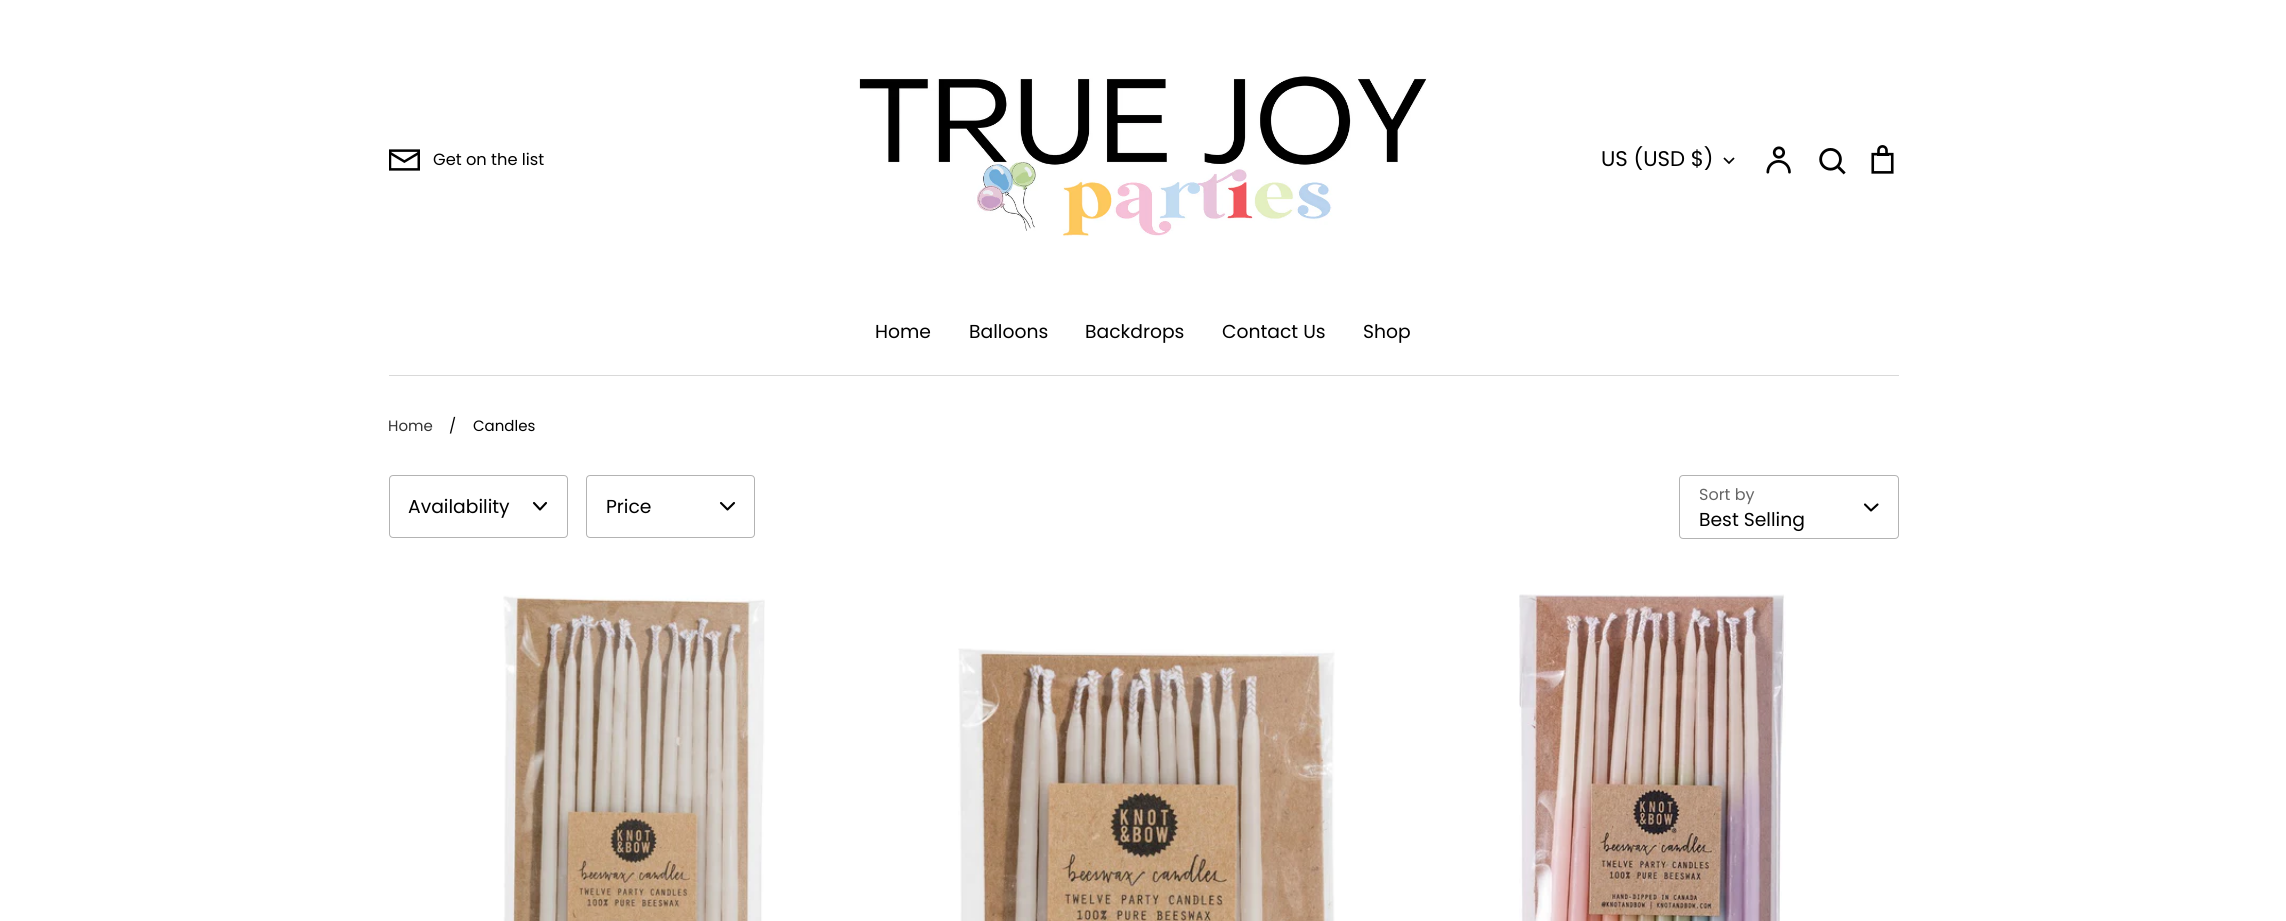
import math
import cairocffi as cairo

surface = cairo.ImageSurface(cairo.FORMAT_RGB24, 2286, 921)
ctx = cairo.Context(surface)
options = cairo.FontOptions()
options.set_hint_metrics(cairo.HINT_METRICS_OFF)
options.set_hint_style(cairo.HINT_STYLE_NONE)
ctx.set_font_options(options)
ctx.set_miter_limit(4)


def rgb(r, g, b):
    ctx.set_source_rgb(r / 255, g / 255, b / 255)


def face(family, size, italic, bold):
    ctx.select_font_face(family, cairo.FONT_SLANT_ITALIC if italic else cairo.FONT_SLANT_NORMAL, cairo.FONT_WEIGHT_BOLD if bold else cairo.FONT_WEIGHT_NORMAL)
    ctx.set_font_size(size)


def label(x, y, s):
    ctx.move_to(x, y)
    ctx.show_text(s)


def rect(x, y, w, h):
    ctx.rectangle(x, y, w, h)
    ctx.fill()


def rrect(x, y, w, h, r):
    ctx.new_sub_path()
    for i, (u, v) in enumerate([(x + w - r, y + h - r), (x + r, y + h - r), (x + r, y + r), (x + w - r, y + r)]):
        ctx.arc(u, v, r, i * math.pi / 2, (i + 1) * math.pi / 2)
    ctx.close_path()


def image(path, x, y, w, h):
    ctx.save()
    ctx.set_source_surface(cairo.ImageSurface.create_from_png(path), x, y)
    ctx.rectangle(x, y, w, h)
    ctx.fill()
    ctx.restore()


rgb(255, 255, 255)
ctx.paint()
image('image0.png', 389, 149, 31, 22)
face('Poppins', 16.25, 0, 0)
rgb(0, 0, 0)
label(433, 165, 'Get on the list')
image('image1.png', 859, 76, 568, 161)
face('Poppins', 21.25, 0, 0)
label(1601, 166, 'US (USD $)')
ctx.new_path()
ctx.move_to(1724, 158)
ctx.line_to(1729, 163)
ctx.line_to(1734, 158)
ctx.set_line_width(1.7)
ctx.stroke()
image('image2.png', 1766, 146, 25, 28)
image('image3.png', 1819, 148, 27, 27)
image('image4.png', 1871, 145, 23, 29)
rgb(217, 217, 217)
rect(389, 375, 1510, 1)
face('Poppins', 18.75, 0, 0)
rgb(0, 0, 0)
label(875, 338, 'Home')
label(969, 338, 'Balloons')
label(1085, 338, 'Backdrops')
label(1222, 338, 'Contact Us')
label(1363, 338, 'Shop')
face('Poppins', 15, 0, 0)
rgb(51, 51, 51)
label(388, 431, 'Home')
rgb(0, 0, 0)
label(449, 431, '/')
label(473, 431, 'Candles')
rrect(389.5, 475.5, 178, 62, 3.5)
rgb(179, 179, 179)
ctx.set_line_width(1)
ctx.stroke()
face('Poppins', 18.75, 0, 0)
rgb(0, 0, 0)
label(408, 513, 'Availability')
ctx.new_path()
ctx.move_to(534, 503)
ctx.line_to(540, 509.5)
ctx.line_to(546, 503)
ctx.set_line_width(2.1)
ctx.set_line_cap(cairo.LINE_CAP_ROUND)
ctx.set_line_join(cairo.LINE_JOIN_ROUND)
ctx.stroke()
rrect(586.5, 475.5, 168, 62, 3.5)
rgb(179, 179, 179)
ctx.set_line_width(1)
ctx.set_line_cap(cairo.LINE_CAP_BUTT)
ctx.set_line_join(cairo.LINE_JOIN_MITER)
ctx.stroke()
rgb(0, 0, 0)
label(606, 513, 'Price')
ctx.new_path()
ctx.move_to(721, 503)
ctx.line_to(727.5, 509.5)
ctx.line_to(734, 503)
ctx.set_line_width(2.1)
ctx.set_line_cap(cairo.LINE_CAP_ROUND)
ctx.set_line_join(cairo.LINE_JOIN_ROUND)
ctx.stroke()
rrect(1679.5, 475.5, 219, 63, 3.5)
rgb(179, 179, 179)
ctx.set_line_width(1)
ctx.set_line_cap(cairo.LINE_CAP_BUTT)
ctx.set_line_join(cairo.LINE_JOIN_MITER)
ctx.stroke()
face('Poppins', 16, 0, 0)
rgb(102, 102, 102)
label(1699, 500, 'Sort by')
ctx.new_path()
ctx.move_to(1865, 504.5)
ctx.line_to(1871, 510.5)
ctx.line_to(1877.5, 504.5)
rgb(0, 0, 0)
ctx.set_line_width(2.1)
ctx.set_line_cap(cairo.LINE_CAP_ROUND)
ctx.set_line_join(cairo.LINE_JOIN_ROUND)
ctx.stroke()
face('Poppins', 18.75, 0, 0)
label(1699, 526, 'Best Selling')
image('image5.png', 503, 595, 262, 326)
image('image6.png', 958, 648, 377, 273)
image('image7.png', 1519, 594, 267, 327)
surface.write_to_png('render.png')
